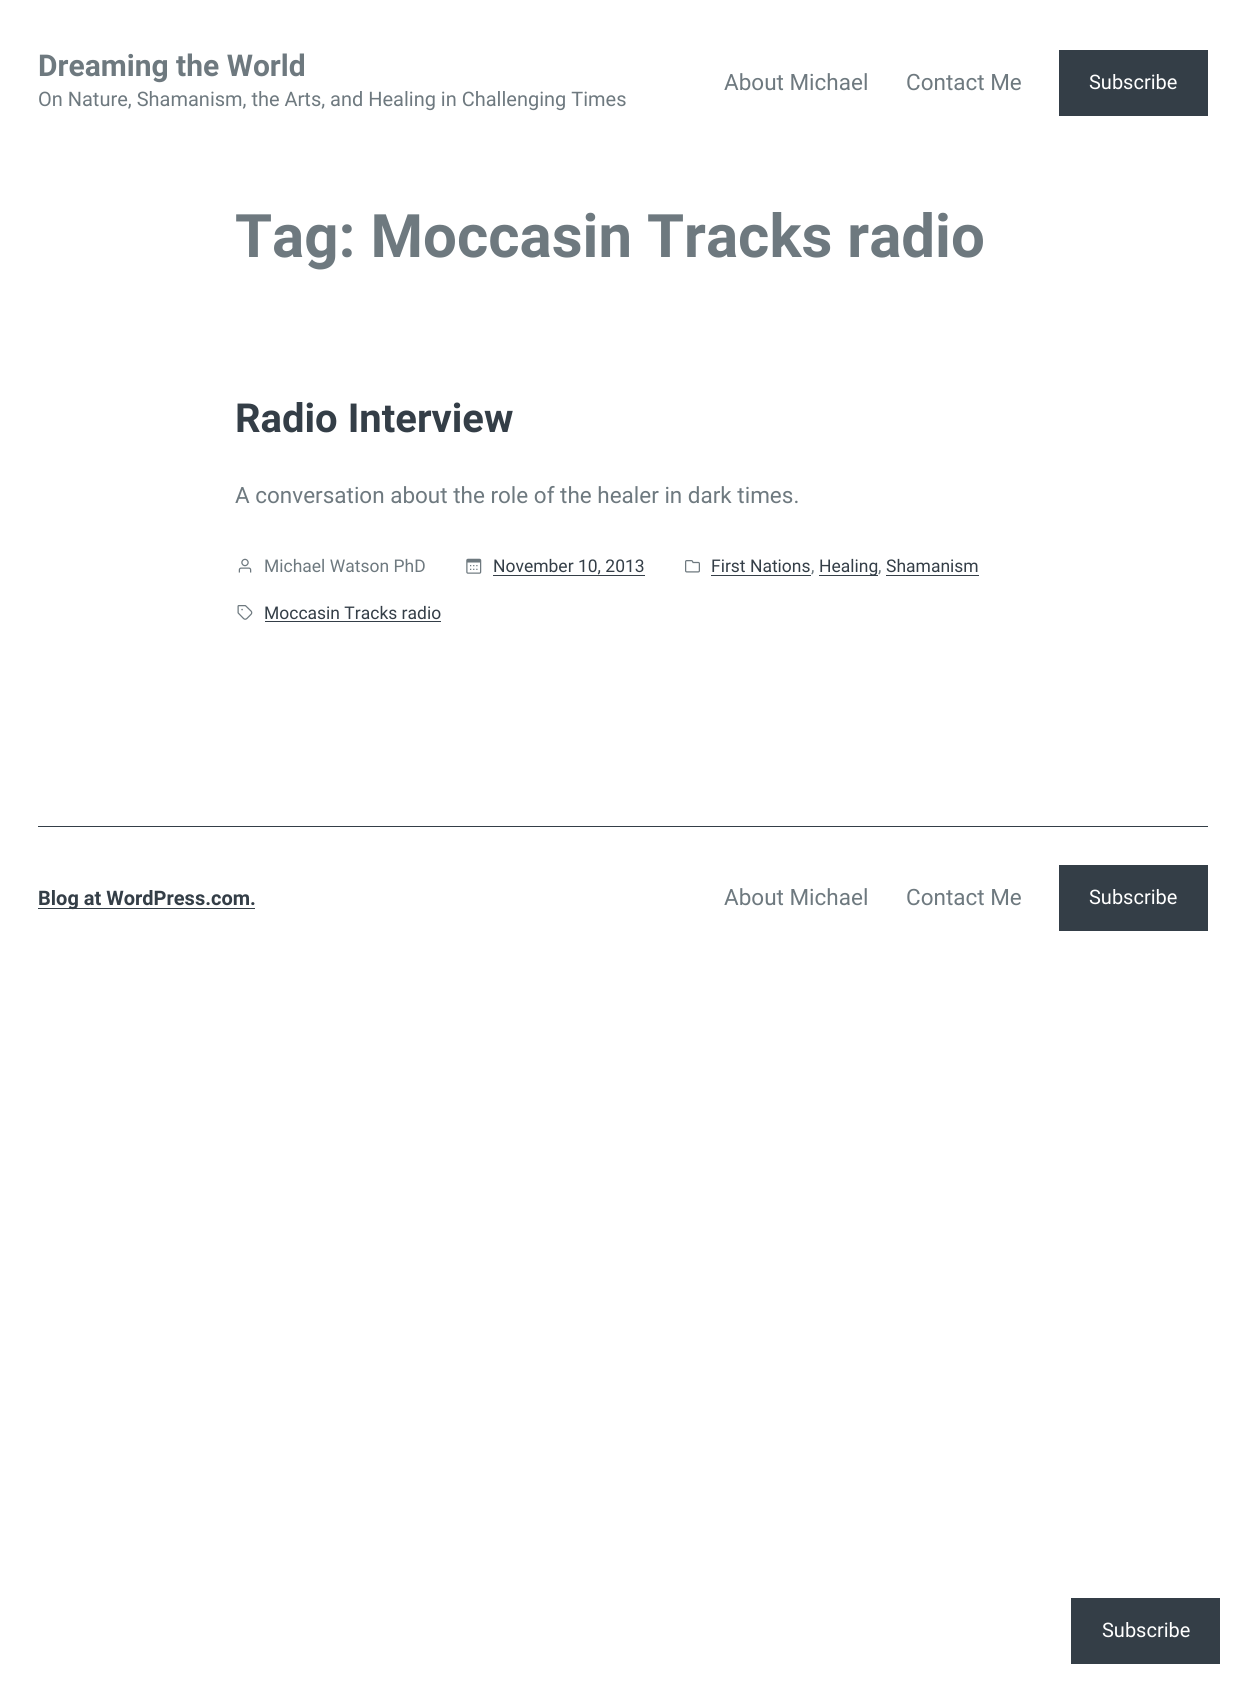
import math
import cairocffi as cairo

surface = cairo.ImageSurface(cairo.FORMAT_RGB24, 1245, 1688)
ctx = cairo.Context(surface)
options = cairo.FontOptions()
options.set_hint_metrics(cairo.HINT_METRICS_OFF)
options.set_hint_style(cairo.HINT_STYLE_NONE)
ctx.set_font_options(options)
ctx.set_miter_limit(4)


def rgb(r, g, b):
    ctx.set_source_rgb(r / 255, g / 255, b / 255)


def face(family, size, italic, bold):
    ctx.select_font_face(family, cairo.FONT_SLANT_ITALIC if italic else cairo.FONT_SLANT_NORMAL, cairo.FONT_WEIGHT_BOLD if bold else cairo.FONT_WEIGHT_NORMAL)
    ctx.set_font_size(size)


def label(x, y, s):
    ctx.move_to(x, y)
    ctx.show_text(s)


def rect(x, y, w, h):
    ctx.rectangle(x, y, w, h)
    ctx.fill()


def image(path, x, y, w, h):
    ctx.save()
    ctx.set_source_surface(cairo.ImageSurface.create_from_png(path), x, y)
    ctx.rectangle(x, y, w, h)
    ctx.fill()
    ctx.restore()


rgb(255, 255, 255)
ctx.paint()
face('Roboto', 30, 0, 1)
rgb(110, 121, 127)
label(38, 76, 'Dreaming the World')
face('Roboto', 20, 0, 0)
label(38, 106, 'On Nature, Shamanism, the Arts, and Healing in Challenging Times')
face('Roboto', 22.5, 0, 0)
label(724, 90, 'About Michael')
label(906, 90, 'Contact Me')
rgb(52, 62, 71)
rect(1059, 50, 149, 66)
face('Roboto', 20, 0, 0)
rgb(255, 255, 255)
label(1089, 89, 'Subscribe')
face('Roboto', 60, 0, 1)
rgb(110, 121, 127)
label(235, 257, 'Tag: Moccasin Tracks radio')
face('Roboto', 40, 0, 1)
rgb(52, 62, 71)
label(235, 432, 'Radio Interview')
face('Roboto', 22.5, 0, 0)
rgb(110, 121, 127)
label(235, 503, 'A conversation about the role of the healer in dark times.')
image('image0.png', 238, 558, 14, 15)
face('Roboto', 17.5, 0, 0)
label(264, 572, 'Michael Watson PhD')
image('image1.png', 466, 558, 16, 16)
rgb(52, 62, 71)
label(493, 572, 'November 10, 2013')
rect(493, 575, 152, 1)
image('image2.png', 685, 560, 15, 13)
label(711, 572, 'First Nations')
rect(711, 575, 100, 1)
rgb(110, 121, 127)
label(811, 572, ',')
rgb(52, 62, 71)
rect(819, 575, 59, 1)
label(819, 572, 'Healing')
rgb(110, 121, 127)
label(878, 572, ',')
rgb(52, 62, 71)
label(886, 572, 'Shamanism')
rect(886, 575, 93, 1)
image('image3.png', 237, 605, 16, 15)
label(264, 619, 'Moccasin Tracks radio')
rect(265, 621, 176, 1)
rect(38, 826, 1170, 1)
rect(38, 908, 217, 1)
face('Roboto', 20, 0, 1)
label(38, 905, 'Blog at WordPress.com.')
face('Roboto', 22.5, 0, 0)
rgb(110, 121, 127)
label(724, 905, 'About Michael')
label(906, 905, 'Contact Me')
rgb(52, 62, 71)
rect(1059, 865, 149, 66)
face('Roboto', 20, 0, 0)
rgb(255, 255, 255)
label(1089, 904, 'Subscribe')
rgb(52, 62, 71)
rect(1071, 1598, 149, 66)
rgb(255, 255, 255)
label(1102, 1637, 'Subscribe')
surface.write_to_png('render.png')
